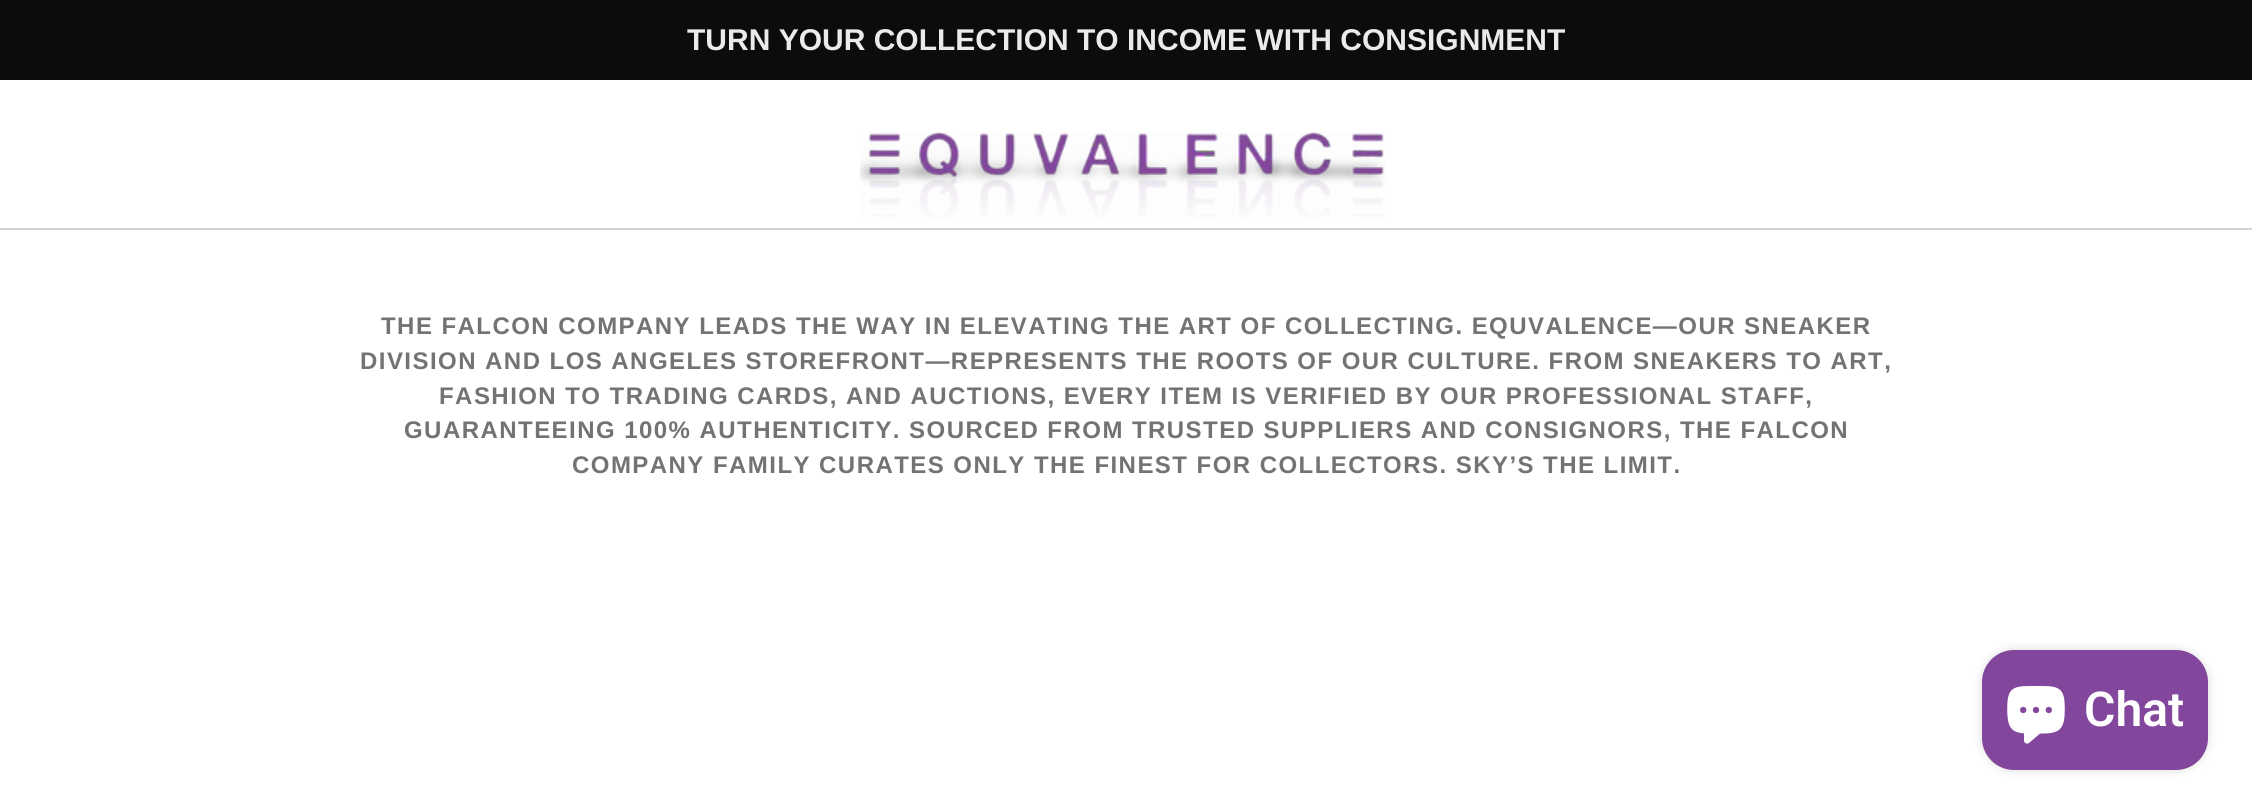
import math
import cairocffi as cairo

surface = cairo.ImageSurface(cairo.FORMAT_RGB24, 2252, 812)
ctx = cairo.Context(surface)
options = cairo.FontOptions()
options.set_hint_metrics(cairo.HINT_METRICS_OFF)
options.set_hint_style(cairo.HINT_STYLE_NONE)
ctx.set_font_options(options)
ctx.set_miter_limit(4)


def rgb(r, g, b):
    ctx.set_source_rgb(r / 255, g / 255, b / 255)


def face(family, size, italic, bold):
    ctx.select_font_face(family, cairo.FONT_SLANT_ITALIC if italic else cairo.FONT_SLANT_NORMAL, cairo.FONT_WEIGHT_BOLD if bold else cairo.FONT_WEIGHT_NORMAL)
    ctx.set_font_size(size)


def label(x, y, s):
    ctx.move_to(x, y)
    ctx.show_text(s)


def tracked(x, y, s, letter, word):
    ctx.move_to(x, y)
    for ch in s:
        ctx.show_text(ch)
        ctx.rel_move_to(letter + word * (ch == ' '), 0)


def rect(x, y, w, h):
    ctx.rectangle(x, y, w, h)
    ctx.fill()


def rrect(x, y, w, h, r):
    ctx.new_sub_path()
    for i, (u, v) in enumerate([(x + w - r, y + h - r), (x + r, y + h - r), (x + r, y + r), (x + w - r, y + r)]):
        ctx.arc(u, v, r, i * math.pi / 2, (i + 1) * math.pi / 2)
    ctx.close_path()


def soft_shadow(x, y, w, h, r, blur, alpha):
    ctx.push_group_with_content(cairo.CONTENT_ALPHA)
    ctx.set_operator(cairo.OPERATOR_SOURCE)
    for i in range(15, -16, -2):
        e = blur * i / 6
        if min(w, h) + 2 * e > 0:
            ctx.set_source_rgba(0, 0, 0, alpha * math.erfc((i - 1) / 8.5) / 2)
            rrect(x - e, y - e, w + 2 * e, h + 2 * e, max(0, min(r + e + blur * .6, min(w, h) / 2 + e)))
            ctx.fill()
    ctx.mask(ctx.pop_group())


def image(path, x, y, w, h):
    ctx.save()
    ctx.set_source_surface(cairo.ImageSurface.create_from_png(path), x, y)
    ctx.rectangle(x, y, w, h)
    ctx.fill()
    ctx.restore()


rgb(255, 255, 255)
ctx.paint()
rgb(12, 12, 11)
rect(0, 0, 2252, 80)
face('Liberation Sans', 30, 0, 1)
rgb(235, 235, 235)
label(687, 50, 'TURN YOUR COLLECTION TO INCOME WITH CONSIGNMENT')
rgb(213, 213, 213)
rect(0, 228, 2252, 2)
image('image0.png', 860, 132, 526, 85)
face('Liberation Sans', 24, 0, 1)
rgb(115, 115, 114)
tracked(381, 334, 'THE FALCON COMPANY LEADS THE WAY IN ELEVATING THE ART OF COLLECTING. EQUVALENCE—OUR SNEAKER', 1.45, 0)
tracked(360, 369, 'DIVISION AND LOS ANGELES STOREFRONT—REPRESENTS THE ROOTS OF OUR CULTURE. FROM SNEAKERS TO ART,', 1.45, 0)
tracked(439, 404, 'FASHION TO TRADING CARDS, AND AUCTIONS, EVERY ITEM IS VERIFIED BY OUR PROFESSIONAL STAFF,', 1.45, 0)
tracked(404, 438, 'GUARANTEEING 100% AUTHENTICITY. SOURCED FROM TRUSTED SUPPLIERS AND CONSIGNORS, THE FALCON', 1.45, 0)
tracked(572, 473, 'COMPANY FAMILY CURATES ONLY THE FINEST FOR COLLECTORS. SKY’S THE LIMIT.', 1.45, 0)
rgb(0, 0, 0)
soft_shadow(1982, 650, 226, 120, 32, 5, 0.15)
rgb(130, 71, 157)
rrect(1982, 650, 226, 120, 32)
ctx.fill()
image('image1.png', 2007, 686, 58, 58)
face('Roboto SemiBold', 48, 0, 0)
rgb(255, 255, 255)
label(2084, 726, 'Chat')
surface.write_to_png('render.png')
